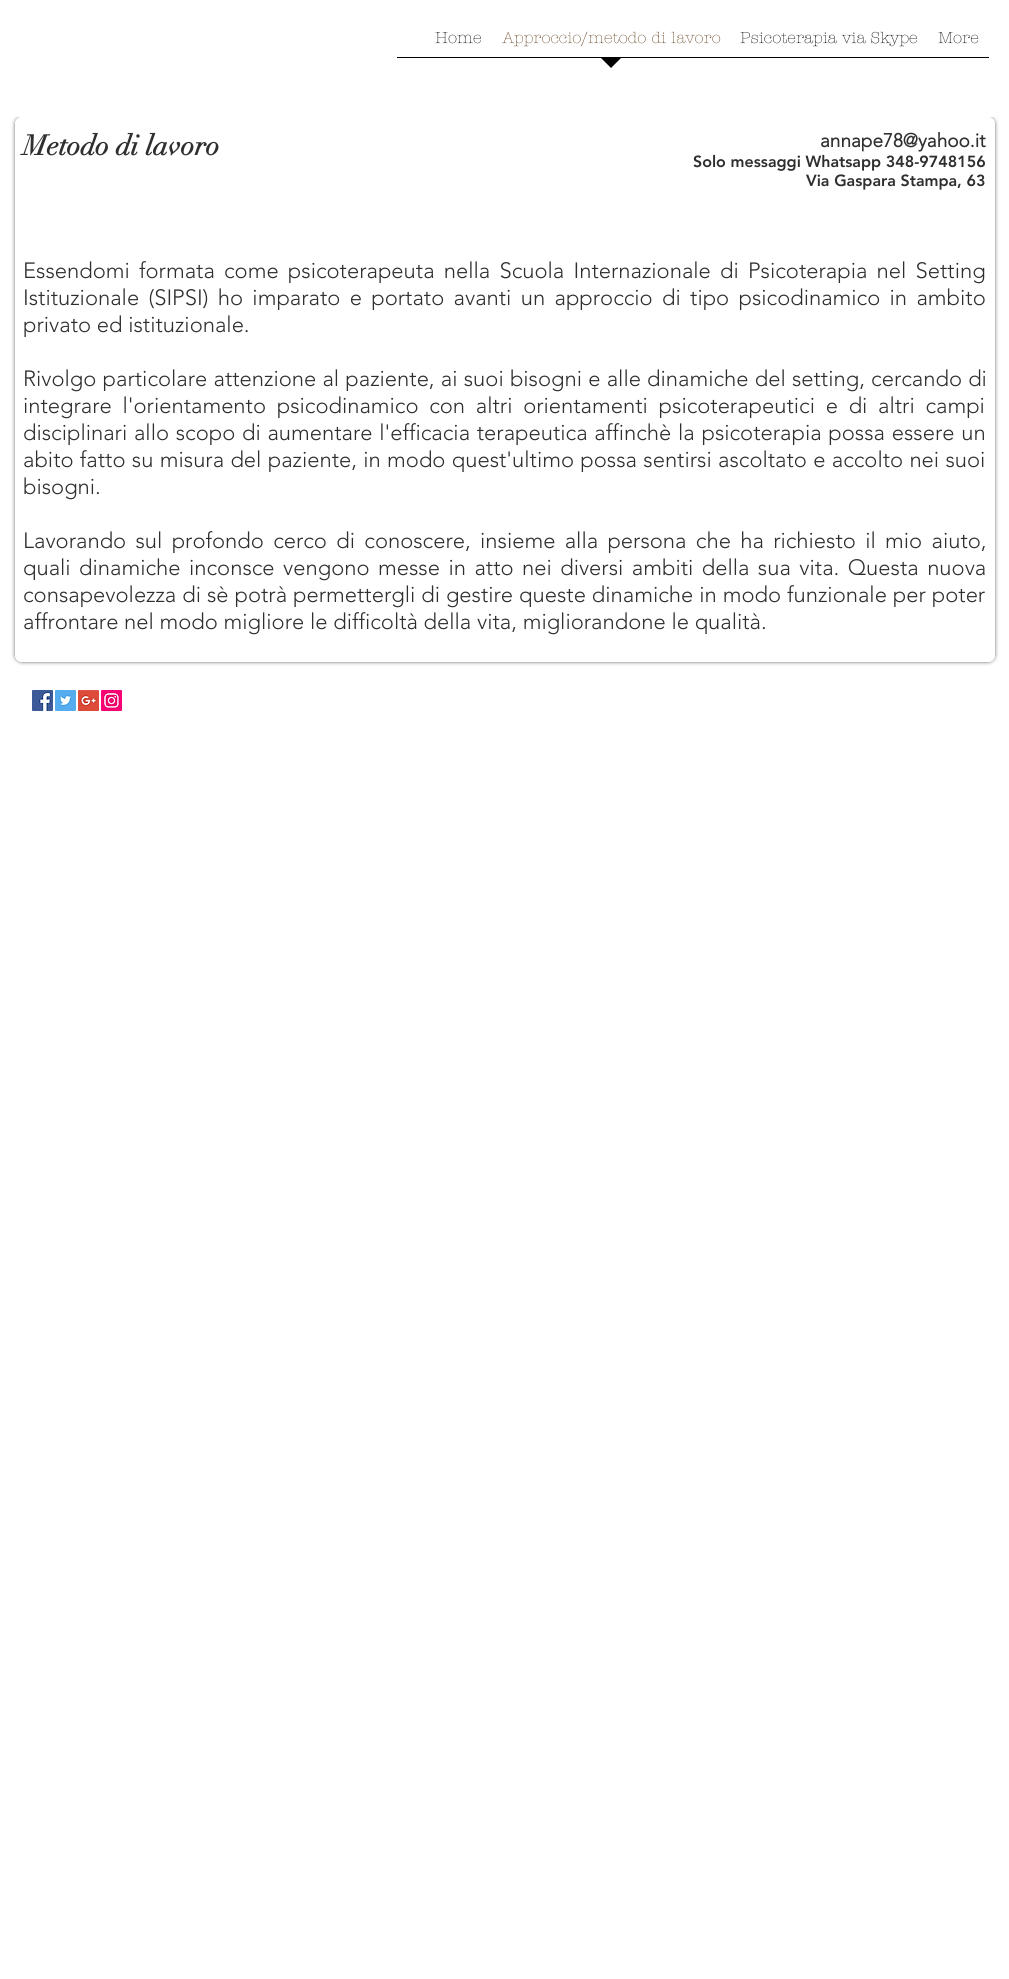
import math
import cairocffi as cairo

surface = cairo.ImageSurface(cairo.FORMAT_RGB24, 1009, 1979)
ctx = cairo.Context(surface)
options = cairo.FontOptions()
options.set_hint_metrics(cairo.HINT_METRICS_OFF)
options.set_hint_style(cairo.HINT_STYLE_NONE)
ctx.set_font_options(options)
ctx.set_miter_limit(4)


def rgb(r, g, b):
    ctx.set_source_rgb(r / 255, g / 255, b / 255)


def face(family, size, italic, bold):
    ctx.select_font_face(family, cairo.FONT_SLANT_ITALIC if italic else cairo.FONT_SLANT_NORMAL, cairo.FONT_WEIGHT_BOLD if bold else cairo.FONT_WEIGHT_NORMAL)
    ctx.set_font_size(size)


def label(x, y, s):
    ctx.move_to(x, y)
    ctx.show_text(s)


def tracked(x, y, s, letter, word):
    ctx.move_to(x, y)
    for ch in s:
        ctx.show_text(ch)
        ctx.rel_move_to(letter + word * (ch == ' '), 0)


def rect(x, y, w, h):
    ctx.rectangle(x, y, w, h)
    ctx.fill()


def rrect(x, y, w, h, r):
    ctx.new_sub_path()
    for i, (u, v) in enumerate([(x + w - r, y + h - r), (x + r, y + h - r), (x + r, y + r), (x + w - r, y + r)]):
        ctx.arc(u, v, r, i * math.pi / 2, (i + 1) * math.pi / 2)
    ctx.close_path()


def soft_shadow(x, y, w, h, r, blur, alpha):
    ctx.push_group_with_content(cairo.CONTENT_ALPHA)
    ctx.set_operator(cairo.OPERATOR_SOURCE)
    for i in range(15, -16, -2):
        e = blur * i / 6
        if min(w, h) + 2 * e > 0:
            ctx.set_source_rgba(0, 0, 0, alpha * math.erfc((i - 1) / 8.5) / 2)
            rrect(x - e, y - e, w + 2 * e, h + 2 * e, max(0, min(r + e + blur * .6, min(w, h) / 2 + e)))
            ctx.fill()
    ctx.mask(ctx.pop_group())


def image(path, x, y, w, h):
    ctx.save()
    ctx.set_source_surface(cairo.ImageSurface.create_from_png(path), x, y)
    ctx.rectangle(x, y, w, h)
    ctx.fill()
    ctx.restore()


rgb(255, 255, 255)
ctx.paint()
face('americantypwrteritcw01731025 Light', 16, 0, 0)
rgb(0, 0, 0)
label(435, 43, 'Home')
rgb(94, 60, 23)
label(502, 43, 'Approccio/metodo di lavoro')
rgb(0, 0, 0)
rect(397, 57, 592, 1)
ctx.new_path()
ctx.move_to(600, 57)
ctx.line_to(622, 57)
ctx.line_to(611, 68)
ctx.close_path()
ctx.fill()
label(740, 43, 'Psicoterapia via Skype')
label(938, 43, 'More')
ctx.save()
ctx.set_fill_rule(cairo.FILL_RULE_EVEN_ODD)
ctx.new_path()
ctx.move_to(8, 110)
ctx.line_to(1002, 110)
ctx.line_to(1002, 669)
ctx.line_to(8, 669)
ctx.close_path()
ctx.move_to(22, 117)
ctx.line_to(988, 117)
ctx.curve_to(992, 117, 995, 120, 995, 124)
ctx.line_to(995, 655)
ctx.curve_to(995, 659, 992, 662, 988, 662)
ctx.line_to(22, 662)
ctx.curve_to(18, 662, 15, 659, 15, 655)
ctx.line_to(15, 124)
ctx.curve_to(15, 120, 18, 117, 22, 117)
ctx.close_path()
ctx.clip()
rgb(0, 0, 0)
soft_shadow(15, 117, 980, 545, 7, 2, 0.6)
ctx.restore()
rgb(255, 255, 255)
rect(14, 113, 982, 4)
ctx.set_source_rgba(1, 1, 1, 0.28)
rrect(15, 117, 980, 545, 7)
ctx.fill()
face('didot', 28, 0, 1)
rgb(47, 47, 46)
label(23, 155, 'Metodo di lavoro')
face('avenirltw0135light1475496', 19, 0, 1)
label(820, 147, 'annape78@yahoo.it')
face('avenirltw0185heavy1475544 Black', 16, 0, 0)
label(693, 167, 'Solo messaggi Whatsapp 348-9748156')
label(806, 186, 'Via Gaspara Stampa, 63')
face('avenirltw0135light1475496 Light', 22, 0, 0)
tracked(23, 278, 'Essendomi formata come psicoterapeuta nella Scuola Internazionale di Psicoterapia nel Setting', 0, 3.5)
tracked(23, 305, 'Istituzionale (SIPSI) ho imparato e portato avanti un approccio di tipo psicodinamico in ambito', 0, 3.6)
label(23, 332, 'privato ed istituzionale.')
tracked(23, 386, 'Rivolgo particolare attenzione al paziente, ai suoi bisogni e alle dinamiche del setting, cercando di', 0, 0.5)
tracked(23, 413, 'integrare l\'orientamento psicodinamico con altri orientamenti psicoterapeutici e di altri campi', 0, 5)
tracked(23, 440, 'disciplinari allo scopo di aumentare l\'efficacia terapeutica affinchè la psicoterapia possa essere un', 0, 1)
tracked(23, 467, 'abito fatto su misura del paziente, in modo quest\'ultimo possa sentirsi ascoltato e accolto nei suoi', 0, 0.6)
label(23, 494, 'bisogni.')
tracked(23, 548, 'Lavorando sul profondo cerco di conoscere, insieme alla persona che ha richiesto il mio aiuto,', 0, 3.6)
tracked(23, 575, 'quali dinamiche inconsce vengono messe in atto nei diversi ambiti della sua vita. Questa nuova', 0, 2.75)
tracked(23, 602, 'consapevolezza di sè potrà permettergli di gestire queste dinamiche in modo funzionale per poter', 0, 0.25)
label(23, 629, 'affrontare nel modo migliore le difficoltà della vita, migliorandone le qualità.')
image('image0.png', 32, 690, 21, 21)
image('image1.png', 55, 690, 21, 21)
image('image2.png', 78, 690, 21, 21)
image('image3.png', 101, 690, 21, 21)
surface.write_to_png('render.png')
